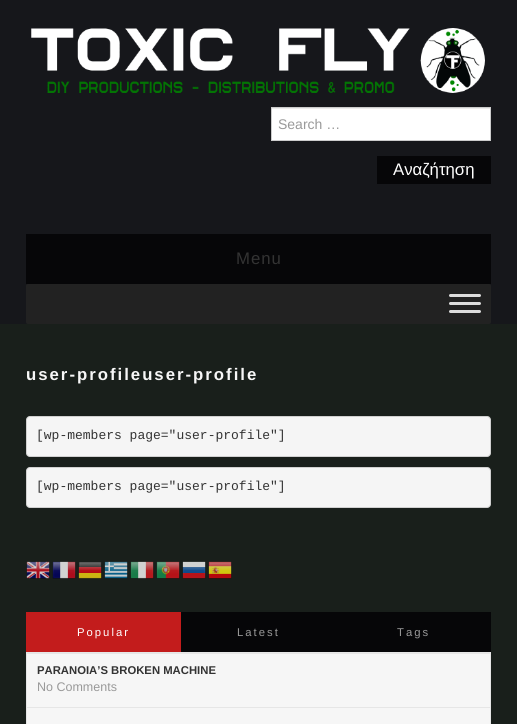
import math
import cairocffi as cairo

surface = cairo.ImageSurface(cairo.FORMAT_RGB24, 517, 724)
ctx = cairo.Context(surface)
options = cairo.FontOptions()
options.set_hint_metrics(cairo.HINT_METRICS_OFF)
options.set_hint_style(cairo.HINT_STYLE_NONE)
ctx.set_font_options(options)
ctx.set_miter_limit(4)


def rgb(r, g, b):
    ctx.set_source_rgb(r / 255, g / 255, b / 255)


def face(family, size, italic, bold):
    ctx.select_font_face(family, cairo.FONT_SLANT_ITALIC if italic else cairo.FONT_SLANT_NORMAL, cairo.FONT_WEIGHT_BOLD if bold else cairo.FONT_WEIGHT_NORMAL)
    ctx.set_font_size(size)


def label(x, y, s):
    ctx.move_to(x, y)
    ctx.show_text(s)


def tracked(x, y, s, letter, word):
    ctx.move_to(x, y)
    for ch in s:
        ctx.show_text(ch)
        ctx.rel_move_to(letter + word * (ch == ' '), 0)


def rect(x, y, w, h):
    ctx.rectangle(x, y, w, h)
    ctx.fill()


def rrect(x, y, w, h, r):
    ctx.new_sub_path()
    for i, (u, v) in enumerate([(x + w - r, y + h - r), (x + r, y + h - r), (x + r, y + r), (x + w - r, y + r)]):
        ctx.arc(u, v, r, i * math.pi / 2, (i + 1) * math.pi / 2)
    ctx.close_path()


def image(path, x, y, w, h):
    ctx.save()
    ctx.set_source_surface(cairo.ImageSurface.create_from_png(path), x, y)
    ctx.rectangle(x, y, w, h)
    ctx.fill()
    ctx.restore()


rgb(25, 31, 27)
ctx.paint()
rgb(22, 23, 27)
rect(0, 0, 517, 324)
image('image0.png', 31, 28, 454, 65)
rgb(255, 255, 255)
rect(272, 109, 218, 31)
rgb(236, 236, 236)
rect(272, 108, 218, 1)
ctx.rectangle(271.5, 107.5, 219, 33)
rgb(204, 204, 204)
ctx.set_line_width(1)
ctx.stroke()
face('Liberation Sans', 14, 0, 0)
rgb(153, 153, 153)
label(278, 129, 'Search …')
rgb(6, 6, 8)
rect(377, 156, 114, 28)
face('Liberation Sans', 16.75, 0, 0)
rgb(255, 255, 255)
label(393, 175, 'Αναζήτηση')
rgb(6, 6, 8)
rect(26, 234, 465, 50)
rgb(51, 51, 51)
tracked(236, 264, 'Menu', 1, 0)
rgb(34, 34, 34)
rrect(26, 284, 465, 40, 2)
ctx.fill()
rgb(221, 221, 221)
rrect(449, 294, 32, 3, 1.5)
ctx.fill()
rrect(449, 302, 32, 3, 1.5)
ctx.fill()
rrect(449, 310, 32, 3, 1.5)
ctx.fill()
face('Liberation Sans', 16.75, 0, 1)
rgb(247, 247, 247)
tracked(26, 380, 'user-profileuser-profile', 2, 0)
rgb(245, 245, 245)
rrect(26, 416, 465, 41, 4)
ctx.fill()
rrect(26.5, 416.5, 464, 40, 3.5)
ctx.set_source_rgba(0, 0, 0, 0.15)
ctx.stroke()
face('Liberation Mono', 13, 0, 0)
rgb(51, 51, 51)
label(36, 439, '[wp-members page="user-profile"]')
rgb(245, 245, 245)
rrect(26, 467, 465, 41, 4)
ctx.fill()
rrect(26.5, 467.5, 464, 40, 3.5)
ctx.set_source_rgba(0, 0, 0, 0.15)
ctx.stroke()
rgb(51, 51, 51)
label(36, 490, '[wp-members page="user-profile"]')
image('image1.png', 26, 561, 24, 18)
image('image2.png', 52, 561, 24, 18)
image('image3.png', 78, 562, 24, 17)
image('image4.png', 104, 561, 24, 18)
image('image5.png', 130, 561, 24, 18)
image('image6.png', 156, 561, 24, 18)
image('image7.png', 182, 561, 24, 18)
image('image8.png', 208, 561, 24, 18)
rgb(230, 230, 230)
rect(26, 652, 465, 1)
rgb(195, 28, 28)
rect(26, 612, 155, 40)
face('Liberation Sans', 11.3, 0, 0)
rgb(255, 255, 255)
tracked(77, 636, 'Popular', 2, 0)
rgb(6, 6, 8)
rect(181, 612, 310, 40)
rgb(153, 153, 153)
tracked(237, 636, 'Latest', 2, 0)
tracked(397, 636, 'Tags', 2, 0)
rgb(246, 246, 246)
ctx.rectangle(26.5, 653.5, 464, 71)
ctx.fill_preserve()
rgb(230, 230, 230)
ctx.stroke()
rect(27, 707, 463, 1)
face('Liberation Sans', 11.3, 0, 1)
rgb(51, 51, 51)
label(37, 674, 'PARANOIA’S BROKEN MACHINE')
face('Liberation Sans', 12.5, 0, 0)
rgb(153, 153, 153)
label(37, 691, 'No Comments')
surface.write_to_png('render.png')
